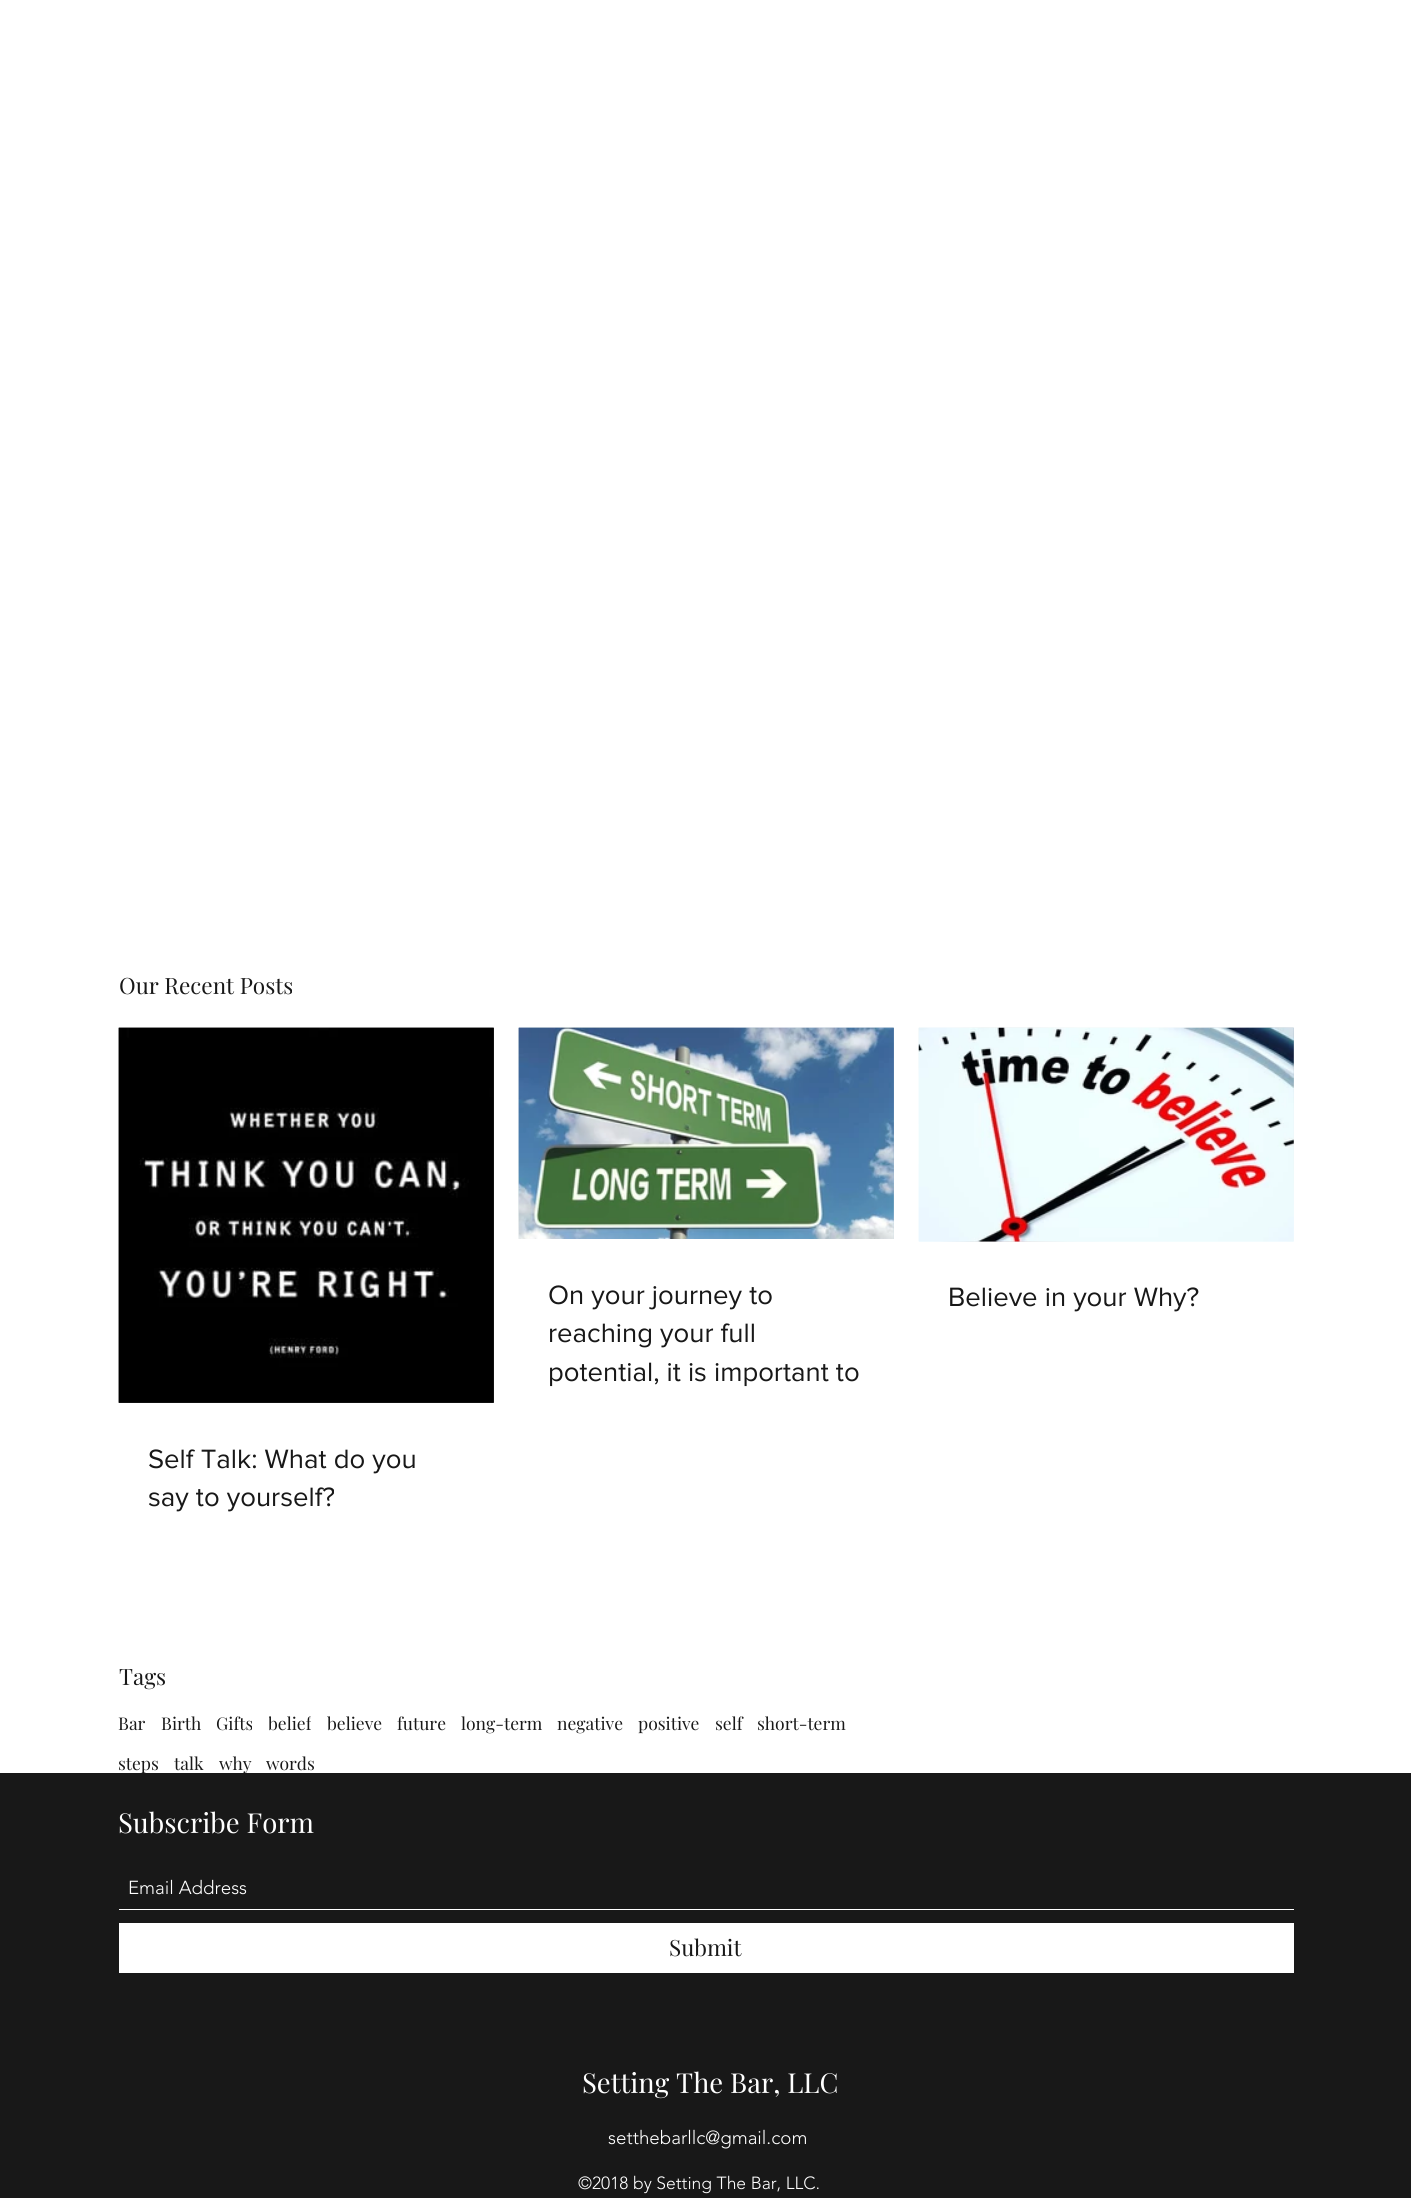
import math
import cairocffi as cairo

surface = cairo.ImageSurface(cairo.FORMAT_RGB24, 1411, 2198)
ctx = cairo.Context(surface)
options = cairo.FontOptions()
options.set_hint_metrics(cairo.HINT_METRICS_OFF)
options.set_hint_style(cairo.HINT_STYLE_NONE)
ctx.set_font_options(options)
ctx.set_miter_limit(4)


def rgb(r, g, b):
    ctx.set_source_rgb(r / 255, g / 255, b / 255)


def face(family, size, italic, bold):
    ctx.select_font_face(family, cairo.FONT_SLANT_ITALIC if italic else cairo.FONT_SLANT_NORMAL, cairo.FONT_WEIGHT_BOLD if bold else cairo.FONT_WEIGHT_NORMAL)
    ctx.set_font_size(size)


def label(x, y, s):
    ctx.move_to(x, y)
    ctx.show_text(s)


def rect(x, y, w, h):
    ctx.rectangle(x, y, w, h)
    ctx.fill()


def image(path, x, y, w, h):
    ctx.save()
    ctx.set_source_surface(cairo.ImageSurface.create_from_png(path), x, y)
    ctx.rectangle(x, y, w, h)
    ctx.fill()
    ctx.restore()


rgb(255, 255, 255)
ctx.paint()
face('Playfair Display', 22.5, 0, 0)
rgb(24, 24, 24)
label(119, 994, 'Our Recent Posts')
image('image0.png', 518, 1027, 376, 212)
image('image1.png', 518, 1027, 376, 212)
face('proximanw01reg', 27.5, 0, 0)
label(548, 1304, 'On your journey to')
label(548, 1342, 'reaching your full')
label(548, 1381, 'potential, it is important to')
image('image2.png', 918, 1027, 376, 215)
image('image3.png', 918, 1027, 376, 215)
label(948, 1306, 'Believe in your Why?')
image('image4.png', 118, 1027, 376, 376)
image('image5.png', 118, 1027, 376, 376)
label(148, 1468, 'Self Talk: What do you')
label(148, 1506, 'say to yourself?')
face('Playfair Display', 22.5, 0, 0)
label(119, 1685, 'Tags')
face('Playfair Display', 17.5, 0, 0)
label(118, 1730, 'Bar')
label(161, 1730, 'Birth')
label(216, 1730, 'Gifts')
ctx.save()
ctx.rectangle(269, 1711, 42, 25)
ctx.clip()
label(268, 1730, 'belief')
ctx.restore()
label(327, 1730, 'believe')
label(397, 1730, 'future')
label(461, 1730, 'long-term')
label(557, 1730, 'negative')
label(638, 1730, 'positive')
label(715, 1730, 'self')
label(757, 1730, 'short-term')
label(118, 1770, 'steps')
label(174, 1770, 'talk')
label(219, 1770, 'why')
label(266, 1770, 'words')
rect(0, 1773, 1411, 425)
face('Playfair Display', 27.5, 0, 0)
rgb(255, 255, 255)
label(118, 1833, 'Subscribe Form')
rect(119, 1909, 1175, 1)
face('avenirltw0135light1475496 Light', 18.75, 0, 0)
label(128, 1894, 'Email Address')
rect(119, 1923, 1175, 50)
face('Playfair Display', 22.5, 0, 0)
rgb(24, 24, 24)
label(669, 1956, 'Submit')
face('Playfair Display', 27.5, 0, 0)
rgb(255, 255, 255)
label(582, 2093, 'Setting The Bar, LLC')
face('avenirltw0135light1475496 Light', 18.75, 0, 0)
label(608, 2144, 'setthebarllc@gmail.com')
face('avenirltw0135light1475496 Light', 17.5, 0, 0)
label(578, 2189, '©2018 by Setting The Bar, LLC.')
surface.write_to_png('render.png')
